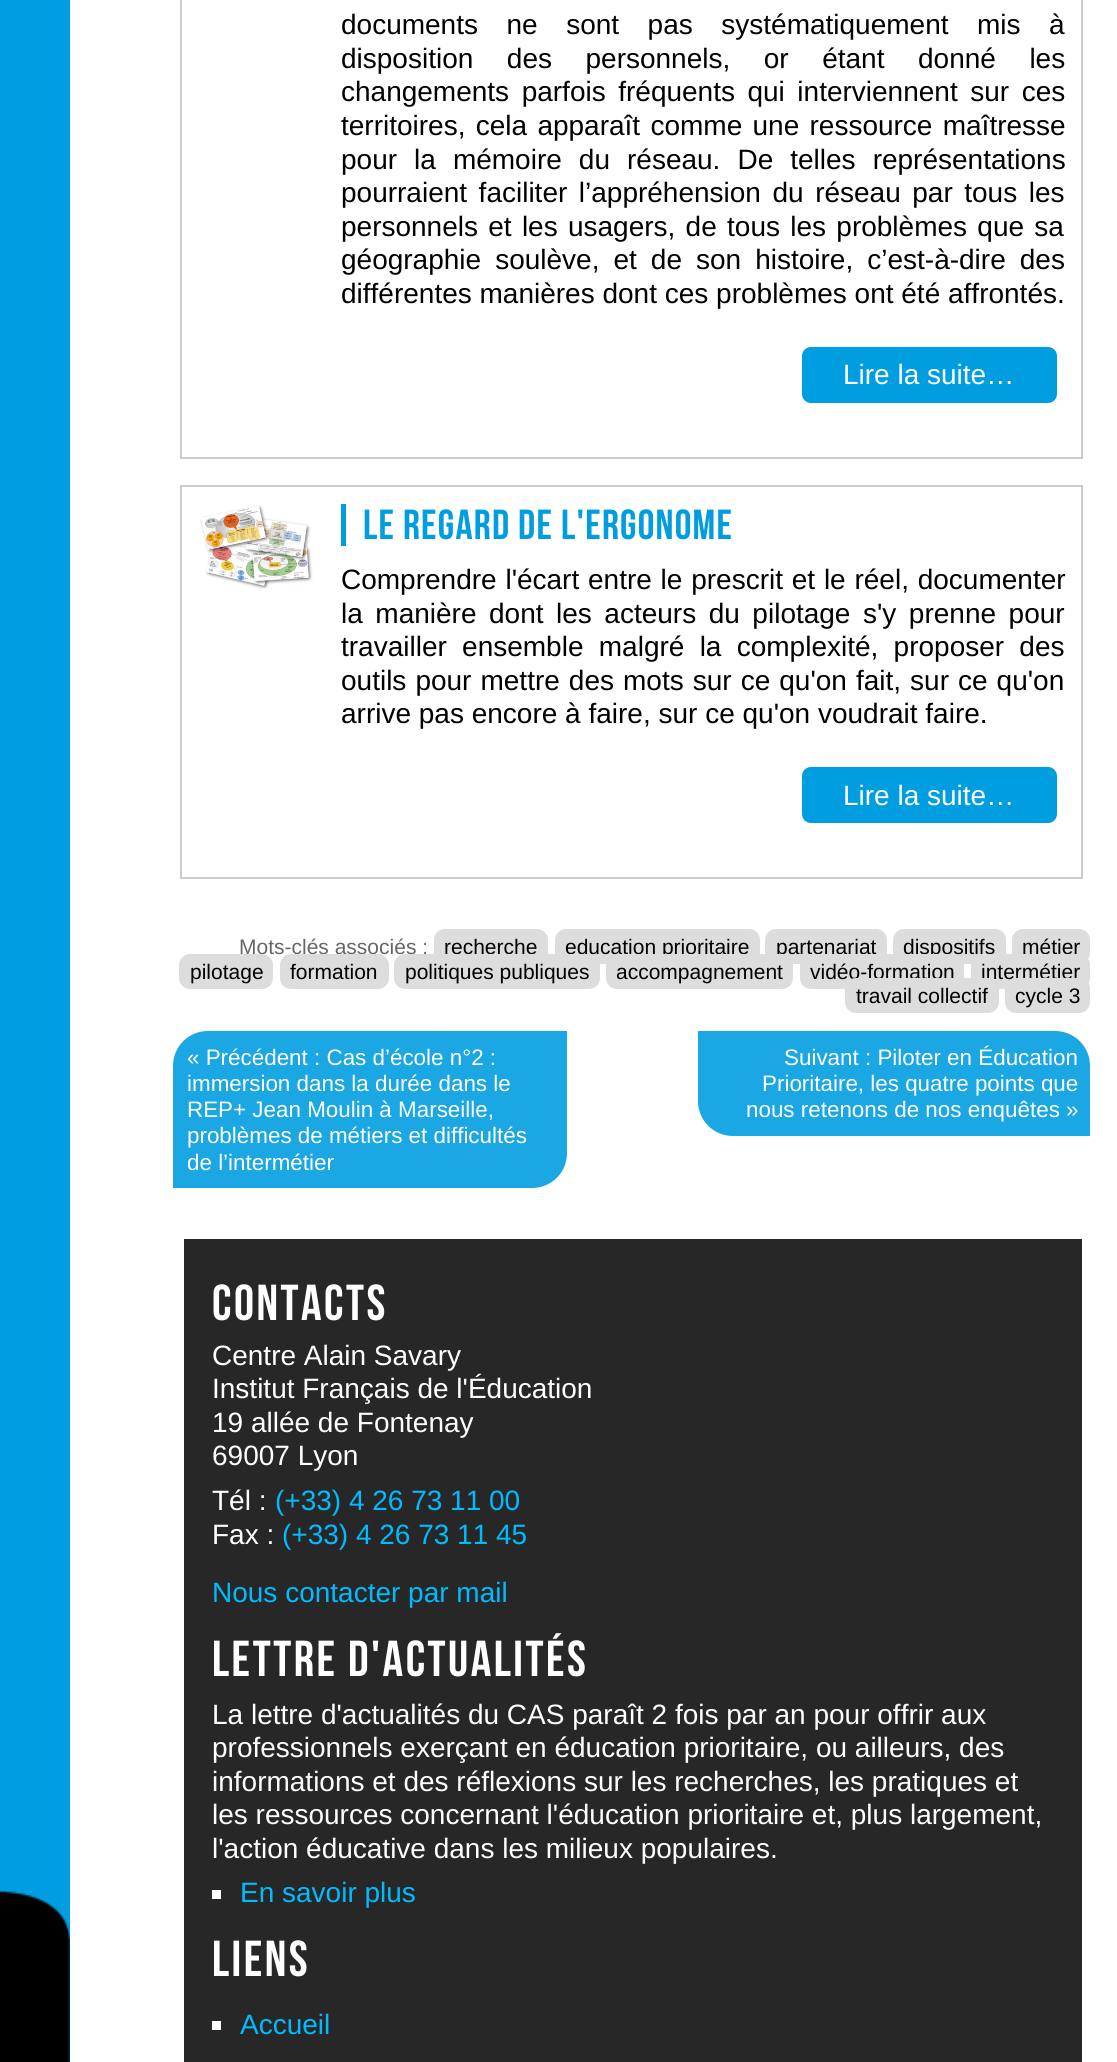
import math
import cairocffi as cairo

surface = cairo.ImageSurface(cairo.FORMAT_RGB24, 1117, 2062)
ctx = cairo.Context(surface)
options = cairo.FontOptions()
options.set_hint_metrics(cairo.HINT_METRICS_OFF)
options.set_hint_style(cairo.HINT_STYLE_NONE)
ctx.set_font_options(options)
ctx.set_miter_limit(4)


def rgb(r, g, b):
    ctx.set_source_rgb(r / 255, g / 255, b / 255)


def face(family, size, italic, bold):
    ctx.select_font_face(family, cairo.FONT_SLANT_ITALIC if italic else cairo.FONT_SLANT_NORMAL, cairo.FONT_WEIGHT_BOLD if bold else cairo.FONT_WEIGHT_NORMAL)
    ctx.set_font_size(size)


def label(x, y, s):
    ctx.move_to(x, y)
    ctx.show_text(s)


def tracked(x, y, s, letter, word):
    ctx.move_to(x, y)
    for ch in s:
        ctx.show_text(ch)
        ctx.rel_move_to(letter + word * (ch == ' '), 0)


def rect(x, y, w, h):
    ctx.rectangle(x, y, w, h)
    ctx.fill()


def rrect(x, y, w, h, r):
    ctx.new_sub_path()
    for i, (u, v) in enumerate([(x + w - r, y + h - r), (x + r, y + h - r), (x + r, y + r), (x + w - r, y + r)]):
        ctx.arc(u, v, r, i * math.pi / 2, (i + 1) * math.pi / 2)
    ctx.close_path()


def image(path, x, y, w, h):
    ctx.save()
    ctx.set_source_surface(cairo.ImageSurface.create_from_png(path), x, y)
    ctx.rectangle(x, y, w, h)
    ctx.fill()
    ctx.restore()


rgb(255, 255, 255)
ctx.paint()
rgb(0, 157, 224)
rect(0, 0, 70, 2062)
image('image0.png', 0, 1890, 70, 172)
ctx.rectangle(181, -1, 901, 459)
rgb(204, 204, 204)
ctx.stroke()
face('Liberation Sans', 28, 0, 0)
rgb(0, 0, 0)
tracked(341, 34, 'documents ne sont pas systématiquement mis à', 0, 20.75)
tracked(341, 68, 'disposition des personnels, or étant donné les', 0, 25.75)
tracked(341, 101, 'changements parfois fréquents qui interviennent sur ces', 0, 4.75)
tracked(341, 135, 'territoires, cela apparaît comme une ressource maîtresse', 0, 2.5)
tracked(341, 169, 'pour la mémoire du réseau. De telles représentations', 0, 9.25)
tracked(341, 202, 'pourraient faciliter l’appréhension du réseau par tous les', 0, 3.75)
tracked(341, 236, 'personnels et les usagers, de tous les problèmes que sa', 0, 2.5)
tracked(341, 269, 'géographie soulève, et de son histoire, c’est-à-dire des', 0, 6.25)
label(341, 303, 'différentes manières dont ces problèmes ont été affrontés.')
rgb(0, 157, 224)
rrect(802, 347, 255, 56, 9)
ctx.fill()
rgb(255, 255, 255)
label(843, 384, 'Lire la suite…')
ctx.rectangle(181, 486, 901, 392)
rgb(204, 204, 204)
ctx.stroke()
image('image1.png', 200, 505, 113, 84)
rgb(0, 157, 224)
rect(341, 504, 5, 42)
face('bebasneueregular', 42, 0, 0)
tracked(363, 539, 'Le regard de l\'ergonome', 1.25, 0)
face('Liberation Sans', 28, 0, 0)
rgb(0, 0, 0)
tracked(341, 589, 'Comprendre l\'écart entre le prescrit et le réel, documenter', 0, 1)
tracked(341, 623, 'la manière dont les acteurs du pilotage s\'y prenne pour', 0, 4.75)
tracked(341, 656, 'travailler ensemble malgré la complexité, proposer des', 0, 7.5)
tracked(341, 690, 'outils pour mettre des mots sur ce qu\'on fait, sur ce qu\'on', 0, 1.25)
label(341, 723, 'arrive pas encore à faire, sur ce qu\'on voudrait faire.')
rgb(0, 157, 224)
rrect(802, 767, 255, 56, 9)
ctx.fill()
rgb(255, 255, 255)
label(843, 805, 'Lire la suite…')
face('Liberation Sans', 21, 0, 0)
rgb(102, 102, 102)
label(239, 954, 'Mots-clés associés :')
rgb(221, 221, 221)
rrect(434, 929, 114, 35, 11)
ctx.fill()
rgb(0, 0, 0)
label(444, 954, 'recherche')
rgb(221, 221, 221)
rrect(555, 929, 205, 35, 11)
ctx.fill()
rgb(0, 0, 0)
label(565, 954, 'education prioritaire')
rgb(221, 221, 221)
rrect(765, 929, 122, 35, 11)
ctx.fill()
rgb(0, 0, 0)
label(776, 954, 'partenariat')
rgb(221, 221, 221)
rrect(893, 929, 113, 35, 11)
ctx.fill()
rgb(0, 0, 0)
label(903, 954, 'dispositifs')
rgb(221, 221, 221)
rrect(1012, 929, 78, 35, 11)
ctx.fill()
rgb(0, 0, 0)
label(1022, 954, 'métier')
rgb(221, 221, 221)
rrect(179, 954, 94, 35, 11)
ctx.fill()
rgb(0, 0, 0)
label(190, 979, 'pilotage')
rgb(221, 221, 221)
rrect(280, 954, 109, 35, 11)
ctx.fill()
rgb(0, 0, 0)
label(290, 979, 'formation')
rgb(221, 221, 221)
rrect(394, 954, 206, 35, 11)
ctx.fill()
rgb(0, 0, 0)
label(405, 979, 'politiques publiques')
rgb(221, 221, 221)
rrect(606, 954, 187, 35, 11)
ctx.fill()
rgb(0, 0, 0)
label(616, 979, 'accompagnement')
rgb(221, 221, 221)
rrect(800, 954, 164, 35, 11)
ctx.fill()
rgb(0, 0, 0)
label(810, 979, 'vidéo-formation')
rgb(221, 221, 221)
rrect(971, 954, 119, 35, 11)
ctx.fill()
rgb(0, 0, 0)
label(981, 979, 'intermétier')
rgb(221, 221, 221)
rrect(845, 978, 154, 35, 11)
ctx.fill()
rgb(0, 0, 0)
label(856, 1003, 'travail collectif')
rgb(221, 221, 221)
rrect(1005, 978, 85, 35, 11)
ctx.fill()
rgb(0, 0, 0)
label(1015, 1003, 'cycle 3')
rgb(26, 167, 227)
ctx.new_path()
ctx.move_to(208, 1031)
ctx.line_to(567, 1031)
ctx.line_to(567, 1153)
ctx.curve_to(567, 1172.5, 551.5, 1188, 532, 1188)
ctx.line_to(173, 1188)
ctx.line_to(173, 1066)
ctx.curve_to(173, 1046.5, 188.5, 1031, 208, 1031)
ctx.close_path()
ctx.fill()
face('Liberation Sans', 22.4, 0, 0)
rgb(255, 255, 255)
label(187, 1065, '« Précédent : Cas d’école n°2 :')
label(187, 1091, 'immersion dans la durée dans le')
label(187, 1117, 'REP+ Jean Moulin à Marseille,')
label(187, 1143, 'problèmes de métiers et difficultés')
label(187, 1170, 'de l’intermétier')
rgb(26, 167, 227)
ctx.new_path()
ctx.move_to(698, 1031)
ctx.line_to(1055, 1031)
ctx.curve_to(1074.5, 1031, 1090, 1046.5, 1090, 1066)
ctx.line_to(1090, 1136)
ctx.line_to(733, 1136)
ctx.curve_to(713.5, 1136, 698, 1120.5, 698, 1101)
ctx.close_path()
ctx.fill()
rgb(255, 255, 255)
label(784, 1065, 'Suivant : Piloter en Éducation')
label(762, 1091, 'Prioritaire, les quatre points que')
label(746, 1117, 'nous retenons de nos enquêtes »')
rgb(39, 39, 39)
rect(184, 1239, 898, 823)
face('bebasneueregular', 50.5, 0, 0)
rgb(255, 255, 255)
tracked(212, 1320, 'Contacts', 2.5, 0)
face('Liberation Sans', 28, 0, 0)
label(212, 1365, 'Centre Alain Savary')
label(212, 1398, 'Institut Français de l\'Éducation')
label(212, 1432, '19 allée de Fontenay')
label(212, 1465, '69007 Lyon')
label(212, 1510, 'Tél :')
rgb(0, 188, 255)
label(275, 1510, '(+33) 4 26 73 11 00')
rgb(255, 255, 255)
label(212, 1544, 'Fax :')
rgb(0, 188, 255)
label(282, 1544, '(+33) 4 26 73 11 45')
label(212, 1602, 'Nous contacter par mail')
face('bebasneueregular', 50.5, 0, 0)
rgb(255, 255, 255)
tracked(212, 1676, 'Lettre d\'actualités', 2.5, 0)
face('Liberation Sans', 28, 0, 0)
label(212, 1724, 'La lettre d\'actualités du CAS paraît 2 fois par an pour offrir aux')
label(212, 1757, 'professionnels exerçant en éducation prioritaire, ou ailleurs, des')
label(212, 1791, 'informations et des réflexions sur les recherches, les pratiques et')
label(212, 1824, 'les ressources concernant l\'éducation prioritaire et, plus largement,')
label(212, 1858, 'l\'action éducative dans les milieux populaires.')
rect(212, 1890, 9, 9)
rgb(0, 188, 255)
label(240, 1902, 'En savoir plus')
face('bebasneueregular', 50.5, 0, 0)
rgb(255, 255, 255)
tracked(212, 1976, 'Liens', 2.5, 0)
rect(212, 2021, 9, 9)
face('Liberation Sans', 28, 0, 0)
rgb(0, 188, 255)
label(240, 2034, 'Accueil')
surface.write_to_png('render.png')
